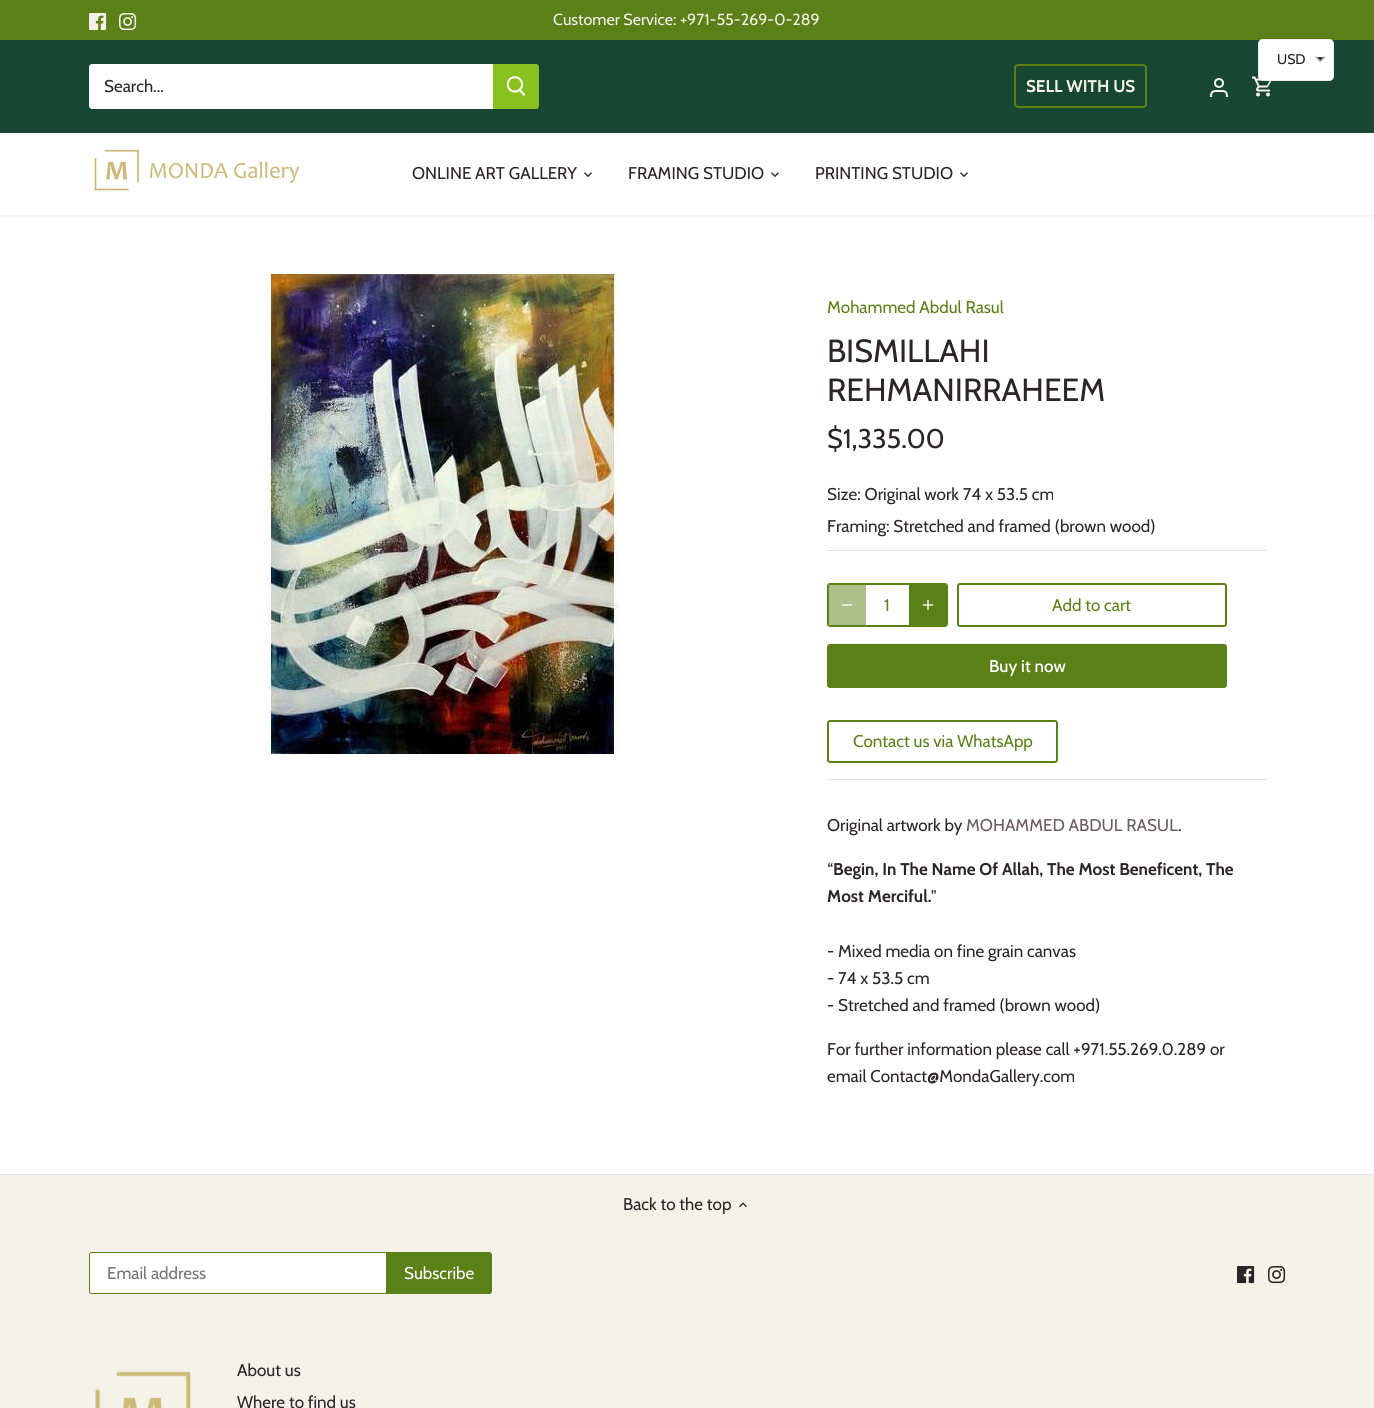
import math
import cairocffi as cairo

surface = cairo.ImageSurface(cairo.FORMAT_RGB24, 1374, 1408)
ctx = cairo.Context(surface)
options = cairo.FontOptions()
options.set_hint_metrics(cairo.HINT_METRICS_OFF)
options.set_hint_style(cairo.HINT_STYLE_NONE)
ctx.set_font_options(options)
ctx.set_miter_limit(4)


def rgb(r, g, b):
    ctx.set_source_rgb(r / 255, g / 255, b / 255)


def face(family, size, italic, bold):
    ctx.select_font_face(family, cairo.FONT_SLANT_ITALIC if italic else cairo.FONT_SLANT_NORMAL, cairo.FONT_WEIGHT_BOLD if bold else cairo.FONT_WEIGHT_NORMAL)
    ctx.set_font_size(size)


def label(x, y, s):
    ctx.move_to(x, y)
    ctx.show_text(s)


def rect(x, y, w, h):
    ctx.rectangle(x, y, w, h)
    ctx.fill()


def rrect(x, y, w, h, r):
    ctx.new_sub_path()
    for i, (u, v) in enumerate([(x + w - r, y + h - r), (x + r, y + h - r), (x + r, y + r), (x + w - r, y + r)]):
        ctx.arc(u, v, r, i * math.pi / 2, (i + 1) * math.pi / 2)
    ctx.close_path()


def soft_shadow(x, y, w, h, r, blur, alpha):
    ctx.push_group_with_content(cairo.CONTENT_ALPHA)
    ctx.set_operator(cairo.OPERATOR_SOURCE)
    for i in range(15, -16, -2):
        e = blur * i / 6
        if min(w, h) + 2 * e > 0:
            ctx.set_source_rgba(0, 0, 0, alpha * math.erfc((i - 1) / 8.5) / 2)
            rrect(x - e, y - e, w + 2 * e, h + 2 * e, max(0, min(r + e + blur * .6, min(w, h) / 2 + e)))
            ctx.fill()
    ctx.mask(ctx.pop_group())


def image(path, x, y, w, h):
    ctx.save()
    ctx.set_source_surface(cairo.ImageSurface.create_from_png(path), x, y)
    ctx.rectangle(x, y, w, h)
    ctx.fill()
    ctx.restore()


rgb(244, 242, 233)
ctx.paint()
rgb(255, 255, 255)
rect(0, 133, 1374, 1041)
ctx.save()
ctx.rectangle(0, 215, 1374, 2)
ctx.clip()
rgb(0, 0, 0)
soft_shadow(-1, 39, 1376, 177, 0, 1.5, 0.08)
ctx.restore()
rgb(92, 128, 24)
rect(0, 0, 1374, 40)
image('image0.png', 89, 13, 18, 18)
image('image1.png', 119, 13, 18, 18)
face('Cabin', 16.1, 0, 0)
rgb(244, 242, 233)
label(553, 25, 'Customer Service: +971-55-269-0-289')
rgb(23, 71, 51)
rect(0, 40, 1374, 93)
rgb(255, 255, 255)
ctx.new_path()
ctx.move_to(92, 64)
ctx.line_to(494, 64)
ctx.line_to(494, 109)
ctx.line_to(92, 109)
ctx.curve_to(90.5, 109, 89, 107.5, 89, 106)
ctx.line_to(89, 67)
ctx.curve_to(89, 65.5, 90.5, 64, 92, 64)
ctx.close_path()
ctx.fill()
face('Cabin', 17, 0, 0)
rgb(44, 37, 40)
label(104, 92, 'Search...')
rgb(137, 194, 30)
ctx.new_path()
ctx.move_to(493, 64)
ctx.line_to(536, 64)
ctx.curve_to(537.5, 64, 539, 65.5, 539, 67)
ctx.line_to(539, 106)
ctx.curve_to(539, 107.5, 537.5, 109, 536, 109)
ctx.line_to(493, 109)
ctx.close_path()
ctx.fill()
image('image2.png', 506, 76, 20, 20)
rrect(1015, 65, 131, 42, 3)
rgb(92, 128, 24)
ctx.stroke()
face('Cabin', 17, 0, 1)
rgb(244, 242, 233)
label(1026, 92, 'SELL WITH US')
ctx.new_path()
ctx.arc(1219, 83, 4, 0, 2 * math.pi)
ctx.stroke()
ctx.new_path()
ctx.move_to(1227, 97)
ctx.curve_to(1227, 90.5, 1224.5, 91, 1219, 91)
ctx.curve_to(1213.5, 91, 1211, 90.5, 1211, 97)
ctx.stroke()
image('image3.png', 1252, 76, 20, 21)
image('image4.png', 93, 149, 207, 44)
face('Cabin', 17, 0, 0)
rgb(44, 37, 40)
label(412, 179, 'ONLINE ART GALLERY')
image('image5.png', 584, 172, 8, 5)
label(628, 179, 'FRAMING STUDIO')
image('image5.png', 771, 172, 8, 5)
label(815, 179, 'PRINTING STUDIO')
image('image5.png', 960, 172, 8, 5)
image('image6.png', 266, 274, 354, 480)
rgb(92, 128, 24)
label(827, 313, 'Mohammed Abdul Rasul')
face('Cabin', 32, 0, 0)
rgb(44, 37, 40)
label(827, 362, 'BISMILLAHI')
label(827, 401, 'REHMANIRRAHEEM')
face('Cabin', 27, 0, 0)
label(827, 448, '$1,335.00')
face('Cabin', 17, 0, 0)
label(827, 500, 'Size: Original work 74 x 53.5 cm')
label(827, 532, 'Framing: Stretched and framed (brown wood)')
rgb(226, 226, 226)
rect(827, 550, 440, 1)
rrect(828.5, 584.5, 118, 41, 1.5)
rgb(92, 128, 24)
ctx.set_line_width(1)
ctx.stroke()
rrect(827.5, 583.5, 120, 43, 2.5)
ctx.stroke()
ctx.set_source_rgba(0.361, 0.502, 0.094, 0.5)
ctx.new_path()
ctx.move_to(831, 584)
ctx.line_to(866, 584)
ctx.line_to(866, 626)
ctx.line_to(831, 626)
ctx.curve_to(829.5, 626, 828, 624.5, 828, 623)
ctx.line_to(828, 587)
ctx.curve_to(828, 585.5, 829.5, 584, 831, 584)
ctx.close_path()
ctx.fill()
ctx.new_path()
ctx.move_to(842.5, 605)
ctx.line_to(851.5, 605)
rgb(255, 255, 255)
ctx.set_line_width(1.3)
ctx.set_line_cap(cairo.LINE_CAP_ROUND)
ctx.set_line_join(cairo.LINE_JOIN_ROUND)
ctx.stroke()
rgb(92, 128, 24)
label(884, 611, '1')
ctx.save()
rrect(828, 584, 119, 42, 2)
ctx.clip()
ctx.new_path()
ctx.move_to(909, 584)
ctx.line_to(944, 584)
ctx.curve_to(945.5, 584, 947, 585.5, 947, 587)
ctx.line_to(947, 623)
ctx.curve_to(947, 624.5, 945.5, 626, 944, 626)
ctx.line_to(909, 626)
ctx.close_path()
ctx.fill()
ctx.restore()
image('image7.png', 922, 599, 12, 12)
rrect(958, 584, 268, 42, 2)
ctx.set_line_width(2)
ctx.set_line_cap(cairo.LINE_CAP_BUTT)
ctx.set_line_join(cairo.LINE_JOIN_MITER)
ctx.stroke()
label(1052, 611, 'Add to cart')
ctx.new_path()
ctx.move_to(1087, 600)
ctx.curve_to(1090, 597.5, 1095, 597.5, 1098, 600)
rgb(255, 255, 255)
ctx.stroke()
rgb(92, 128, 24)
rrect(827, 644, 400, 44, 3)
ctx.fill()
face('Cabin Medium', 17, 0, 0)
rgb(255, 255, 255)
label(989, 672, 'Buy it now')
rrect(828, 721, 229, 41, 2)
rgb(92, 128, 24)
ctx.stroke()
face('Cabin', 17, 0, 0)
label(853, 747, 'Contact us via WhatsApp')
rgb(226, 226, 226)
rect(827, 779, 440, 1)
rgb(44, 37, 40)
label(827, 831, 'Original artwork by')
rgb(106, 91, 92)
label(966, 831, 'MOHAMMED ABDUL RASUL')
rgb(44, 37, 40)
label(1178, 831, '.')
label(827, 875, '“')
face('Cabin', 17, 0, 1)
label(833, 875, 'Begin, In The Name Of Allah, The Most Beneficent, The')
label(827, 902, 'Most Merciful.')
face('Cabin', 17, 0, 0)
label(931, 902, '"')
label(827, 957, '- Mixed media on fine grain canvas')
label(827, 984, '- 74 x 53.5 cm')
label(827, 1011, '- Stretched and framed (brown wood)')
label(827, 1055, 'For further information please call +971.55.269.0.289 or')
label(827, 1082, 'email Contact@MondaGallery.com')
rgb(226, 226, 226)
rect(0, 1174, 1374, 1)
rgb(44, 37, 40)
label(623, 1210, 'Back to the top')
image('image8.png', 739, 1202, 8, 6)
rgb(255, 255, 255)
rrect(89.5, 1252.5, 401, 41, 2.5)
ctx.fill_preserve()
rgb(92, 128, 24)
ctx.set_line_width(1)
ctx.stroke()
rgb(117, 117, 117)
label(107, 1279, 'Email address')
rgb(92, 128, 24)
ctx.new_path()
ctx.move_to(386.5, 1252.5)
ctx.line_to(489, 1252.5)
ctx.curve_to(490.5, 1252.5, 491.5, 1253.5, 491.5, 1255)
ctx.line_to(491.5, 1291)
ctx.curve_to(491.5, 1292.5, 490.5, 1293.5, 489, 1293.5)
ctx.line_to(386.5, 1293.5)
ctx.close_path()
ctx.fill_preserve()
ctx.stroke()
rgb(255, 255, 255)
label(404, 1279, 'Subscribe')
image('image9.png', 1237, 1266, 18, 18)
image('image10.png', 1268, 1266, 18, 18)
image('image11.png', 95, 1371, 96, 37)
rgb(44, 37, 40)
label(237, 1376, 'About us')
label(237, 1408, 'Where to find us')
rgb(255, 255, 255)
rrect(1258, 39, 76, 42, 5)
ctx.fill()
rrect(1258.5, 39.5, 75, 41, 4.5)
ctx.set_source_rgba(0.8, 0.8, 0.8, 0.36)
ctx.stroke()
face('Cabin', 14, 0, 0)
rgb(30, 30, 30)
label(1277, 64, 'USD')
image('image12.png', 1315, 56, 11, 7)
surface.write_to_png('render.png')
